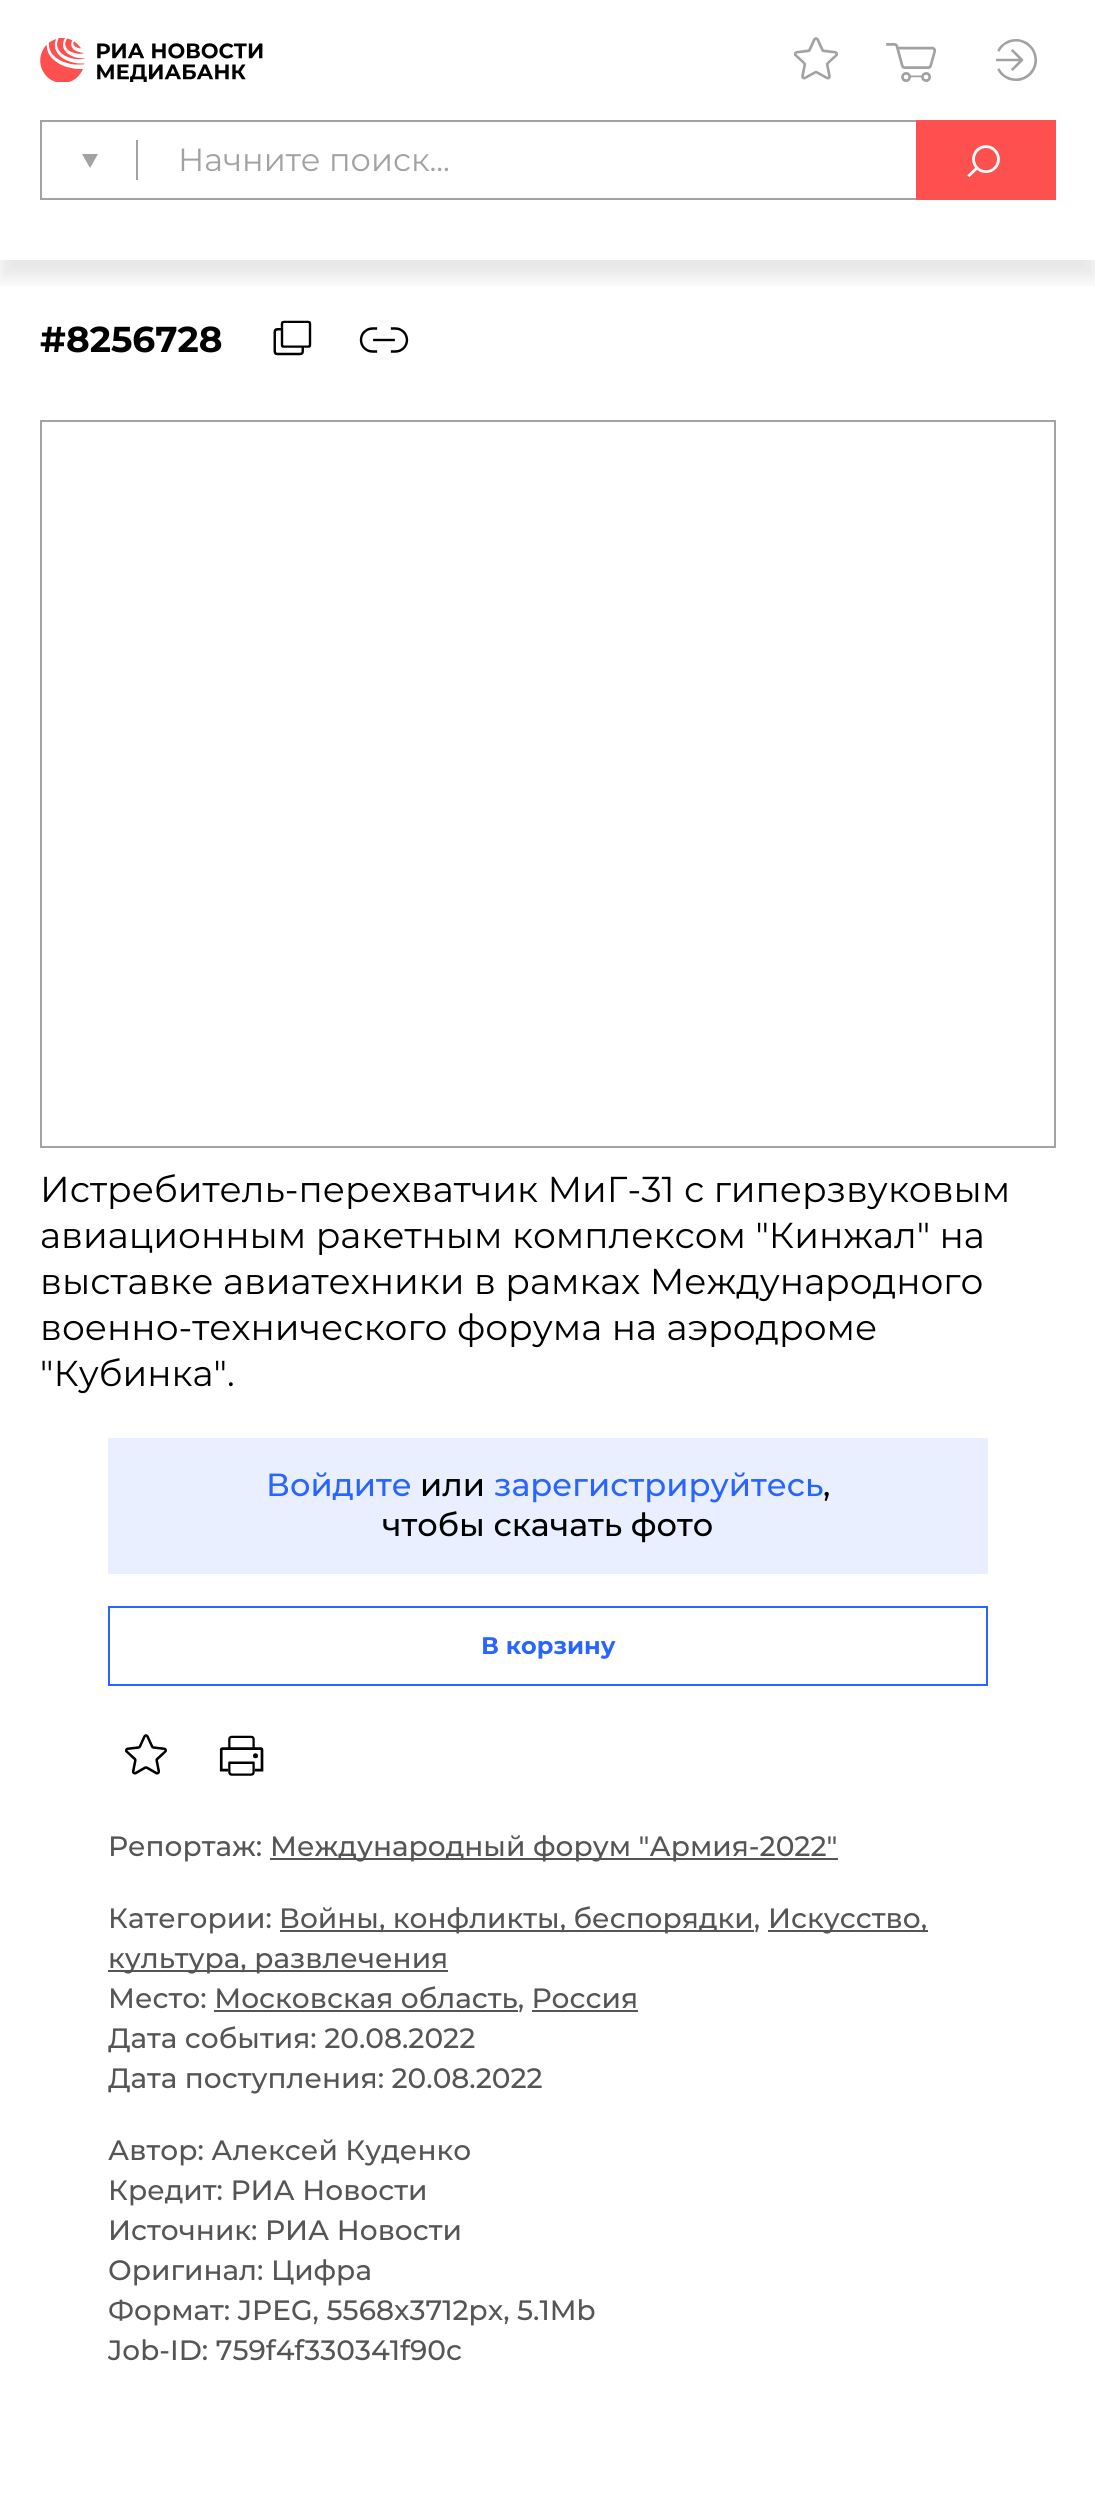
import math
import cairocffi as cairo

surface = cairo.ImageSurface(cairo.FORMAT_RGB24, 1095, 2496)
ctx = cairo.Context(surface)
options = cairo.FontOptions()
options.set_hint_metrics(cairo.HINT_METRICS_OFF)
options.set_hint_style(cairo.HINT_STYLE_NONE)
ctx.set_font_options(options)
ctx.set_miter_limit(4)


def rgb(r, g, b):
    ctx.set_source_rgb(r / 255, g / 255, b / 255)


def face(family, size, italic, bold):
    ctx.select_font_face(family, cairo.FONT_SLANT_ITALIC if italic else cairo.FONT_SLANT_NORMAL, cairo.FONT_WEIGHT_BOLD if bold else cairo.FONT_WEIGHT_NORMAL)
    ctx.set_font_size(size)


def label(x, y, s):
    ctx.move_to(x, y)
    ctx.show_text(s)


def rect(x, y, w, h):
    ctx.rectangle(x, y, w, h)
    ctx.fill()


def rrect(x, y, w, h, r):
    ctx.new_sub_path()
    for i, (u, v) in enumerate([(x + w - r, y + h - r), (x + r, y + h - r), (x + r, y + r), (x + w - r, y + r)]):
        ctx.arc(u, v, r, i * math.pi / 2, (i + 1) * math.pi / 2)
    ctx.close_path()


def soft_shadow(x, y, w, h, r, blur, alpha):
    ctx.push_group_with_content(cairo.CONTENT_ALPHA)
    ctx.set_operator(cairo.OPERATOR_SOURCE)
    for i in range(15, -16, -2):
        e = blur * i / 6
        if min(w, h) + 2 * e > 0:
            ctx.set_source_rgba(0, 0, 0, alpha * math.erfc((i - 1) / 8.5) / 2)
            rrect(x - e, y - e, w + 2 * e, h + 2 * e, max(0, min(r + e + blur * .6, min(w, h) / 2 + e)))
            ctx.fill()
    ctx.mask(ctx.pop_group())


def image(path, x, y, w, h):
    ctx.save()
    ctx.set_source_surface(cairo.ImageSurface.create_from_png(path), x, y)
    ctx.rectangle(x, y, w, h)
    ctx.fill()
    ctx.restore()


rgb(255, 255, 255)
ctx.paint()
ctx.save()
ctx.rectangle(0, 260, 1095, 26)
ctx.clip()
rgb(0, 0, 0)
soft_shadow(0, 18, 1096, 260, 0, 10, 0.1)
ctx.restore()
image('image0.png', 40, 38, 223, 44)
image('image1.png', 793, 37, 45, 43)
image('image2.png', 886, 43, 51, 39)
image('image3.png', 996, 39, 42, 42)
rgb(163, 162, 162)
rect(40, 120, 876, 2)
rect(40, 198, 876, 2)
rect(40, 120, 2, 80)
ctx.new_path()
ctx.move_to(82, 154)
ctx.line_to(98, 154)
ctx.line_to(90, 168)
ctx.close_path()
ctx.fill()
rect(136, 140, 2, 40)
face('Montserrat', 32, 0, 0)
label(178, 171, 'Начните поиск...')
rgb(255, 80, 80)
rect(916, 120, 140, 80)
image('image4.png', 967, 145, 33, 33)
face('Montserrat', 36, 0, 1)
rgb(0, 0, 0)
label(40, 352, '#8256728')
image('image5.png', 273, 320, 39, 36)
image('image6.png', 359, 327, 50, 26)
ctx.rectangle(41, 421, 1014, 726)
rgb(163, 162, 162)
ctx.stroke()
face('Montserrat', 36, 0, 0)
rgb(0, 0, 0)
label(40, 1202, 'Истребитель-перехватчик МиГ-31 с гиперзвуковым')
label(40, 1248, 'авиационным ракетным комплексом "Кинжал" на')
label(40, 1294, 'выставке авиатехники в рамках Международного')
label(40, 1340, 'военно-технического форума на аэродроме')
label(40, 1386, '"Кубинка".')
rgb(233, 239, 255)
rect(108, 1438, 880, 136)
face('Montserrat Medium', 32, 0, 0)
rgb(40, 100, 255)
label(266, 1496, 'Войдите')
rgb(0, 0, 0)
label(420, 1496, 'или')
rgb(40, 100, 255)
label(494, 1496, 'зарегистрируйтесь')
rgb(0, 0, 0)
label(823, 1496, ',')
label(382, 1536, 'чтобы скачать фото')
ctx.rectangle(109, 1607, 878, 78)
rgb(40, 100, 255)
ctx.stroke()
face('Montserrat', 24, 0, 1)
label(481, 1654, 'В корзину')
image('image7.png', 125, 1734, 42, 41)
image('image8.png', 219, 1735, 45, 41)
face('Montserrat Medium', 28, 0, 0)
rgb(85, 85, 85)
label(108, 1856, 'Репортаж:')
rect(270, 1858, 568, 2)
label(270, 1856, 'Международный форум "Армия-2022"')
label(108, 1928, 'Категории:')
rect(280, 1930, 474, 2)
label(279, 1928, 'Войны, конфликты, беспорядки,')
rect(768, 1930, 160, 2)
label(768, 1928, 'Искусство,')
rect(108, 1970, 340, 2)
label(108, 1968, 'культура, развлечения')
label(108, 2008, 'Место: Московская область, Россия')
rect(214, 2010, 304, 2)
rect(532, 2010, 106, 2)
label(108, 2048, 'Дата события: 20.08.2022')
label(108, 2088, 'Дата поступления: 20.08.2022')
label(108, 2160, 'Автор: Алексей Куденко')
label(108, 2200, 'Кредит: РИА Новости')
label(108, 2240, 'Источник: РИА Новости')
label(108, 2280, 'Оригинал: Цифра')
label(108, 2320, 'Формат: JPEG, 5568x3712px, 5.1Mb')
label(108, 2360, 'Job-ID: 759f4f330341f90c')
surface.write_to_png('render.png')
